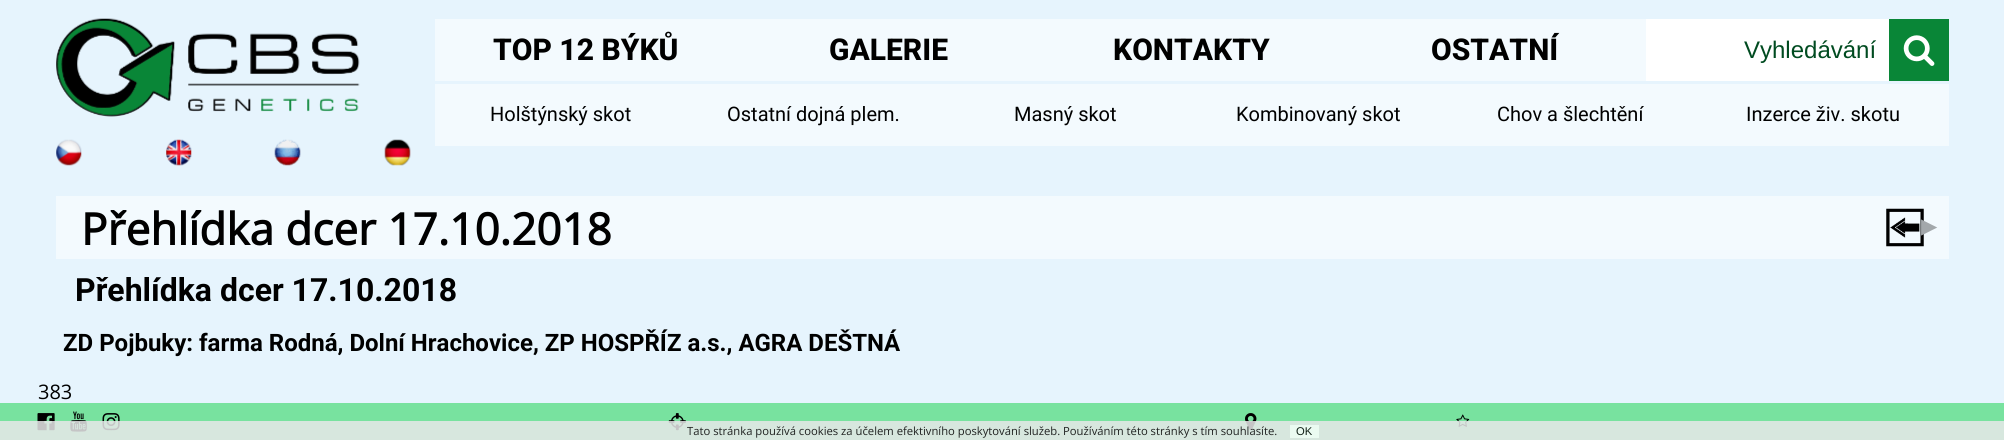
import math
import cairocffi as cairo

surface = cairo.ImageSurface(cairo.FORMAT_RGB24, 2004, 440)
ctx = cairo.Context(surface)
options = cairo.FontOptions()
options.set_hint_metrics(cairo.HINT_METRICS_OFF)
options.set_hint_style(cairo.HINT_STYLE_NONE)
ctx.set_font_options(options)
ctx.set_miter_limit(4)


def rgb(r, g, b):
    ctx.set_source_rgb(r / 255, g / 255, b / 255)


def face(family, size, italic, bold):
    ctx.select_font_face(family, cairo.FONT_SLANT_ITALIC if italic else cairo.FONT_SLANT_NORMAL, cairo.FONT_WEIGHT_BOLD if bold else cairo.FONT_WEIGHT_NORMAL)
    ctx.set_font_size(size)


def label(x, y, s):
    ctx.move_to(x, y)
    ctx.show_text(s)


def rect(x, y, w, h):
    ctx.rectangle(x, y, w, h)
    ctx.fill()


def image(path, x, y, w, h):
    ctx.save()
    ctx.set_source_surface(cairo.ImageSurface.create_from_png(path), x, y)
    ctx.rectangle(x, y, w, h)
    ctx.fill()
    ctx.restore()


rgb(230, 244, 253)
ctx.paint()
image('image0.png', 56, 18, 304, 99)
image('image1.png', 56, 139, 26, 27)
image('image2.png', 166, 139, 26, 27)
image('image3.png', 274, 139, 27, 27)
image('image4.png', 384, 139, 27, 27)
rgb(243, 250, 254)
rect(435, 19, 1211, 62)
face('Roboto ExtraBold', 30, 0, 0)
rgb(0, 0, 0)
label(493, 60, 'TOP 12 BÝKŮ')
label(829, 60, 'GALERIE')
label(1113, 60, 'KONTAKTY')
label(1431, 60, 'OSTATNÍ')
rgb(255, 255, 255)
rect(1646, 19, 243, 62)
face('Liberation Sans', 24, 0, 0)
rgb(0, 75, 32)
label(1744, 58, 'Vyhledávání')
rgb(9, 134, 55)
rect(1889, 19, 60, 62)
image('image5.png', 1903, 35, 32, 31)
rgb(243, 250, 254)
rect(435, 84, 1514, 62)
face('Roboto', 20, 0, 0)
rgb(0, 0, 0)
label(490, 121, 'Holštýnský skot')
label(727, 121, 'Ostatní dojná plem.')
label(1014, 121, 'Masný skot')
label(1236, 121, 'Kombinovaný skot')
label(1497, 121, 'Chov a šlechtění')
label(1746, 121, 'Inzerce živ. skotu')
rgb(243, 250, 254)
rect(56, 196, 1893, 63)
image('image6.png', 1886, 208, 38, 39)
face('DejaVu Sans', 20, 0, 1)
rgb(163, 168, 171)
label(1921, 233, '▶')
face('Open Sans', 44, 0, 1)
rgb(0, 0, 0)
label(81, 245, 'Přehlídka dcer 17.10.2018')
face('Roboto', 32, 0, 1)
label(75, 301, 'Přehlídka dcer 17.10.2018')
face('Roboto', 24, 0, 1)
label(63, 351, 'ZD Pojbuky: farma Rodná, Dolní Hrachovice, ZP HOSPŘÍZ a.s., AGRA DEŠTNÁ')
face('Open Sans', 20, 0, 0)
label(38, 399, '383')
rgb(120, 226, 159)
rect(0, 403, 2004, 37)
image('image7.png', 37, 413, 18, 18)
image('image8.png', 70, 411, 17, 21)
image('image9.png', 102, 413, 18, 18)
image('image10.png', 668, 413, 18, 18)
image('image11.png', 1245, 413, 12, 18)
image('image12.png', 1456, 414, 14, 13)
ctx.set_source_rgba(0.906, 0.906, 0.914, 0.85)
rect(0, 421, 2004, 19)
face('Open Sans', 11.25, 0, 0)
rgb(32, 34, 33)
label(687, 435, 'Tato stránka používá cookies za účelem efektivního poskytování služeb. Používáním této stránky s tím souhlasíte.')
rgb(235, 251, 241)
rect(1290, 425, 29, 13)
face('Liberation Sans', 11.25, 0, 0)
rgb(18, 34, 24)
label(1296, 435, 'OK')
surface.write_to_png('render.png')
